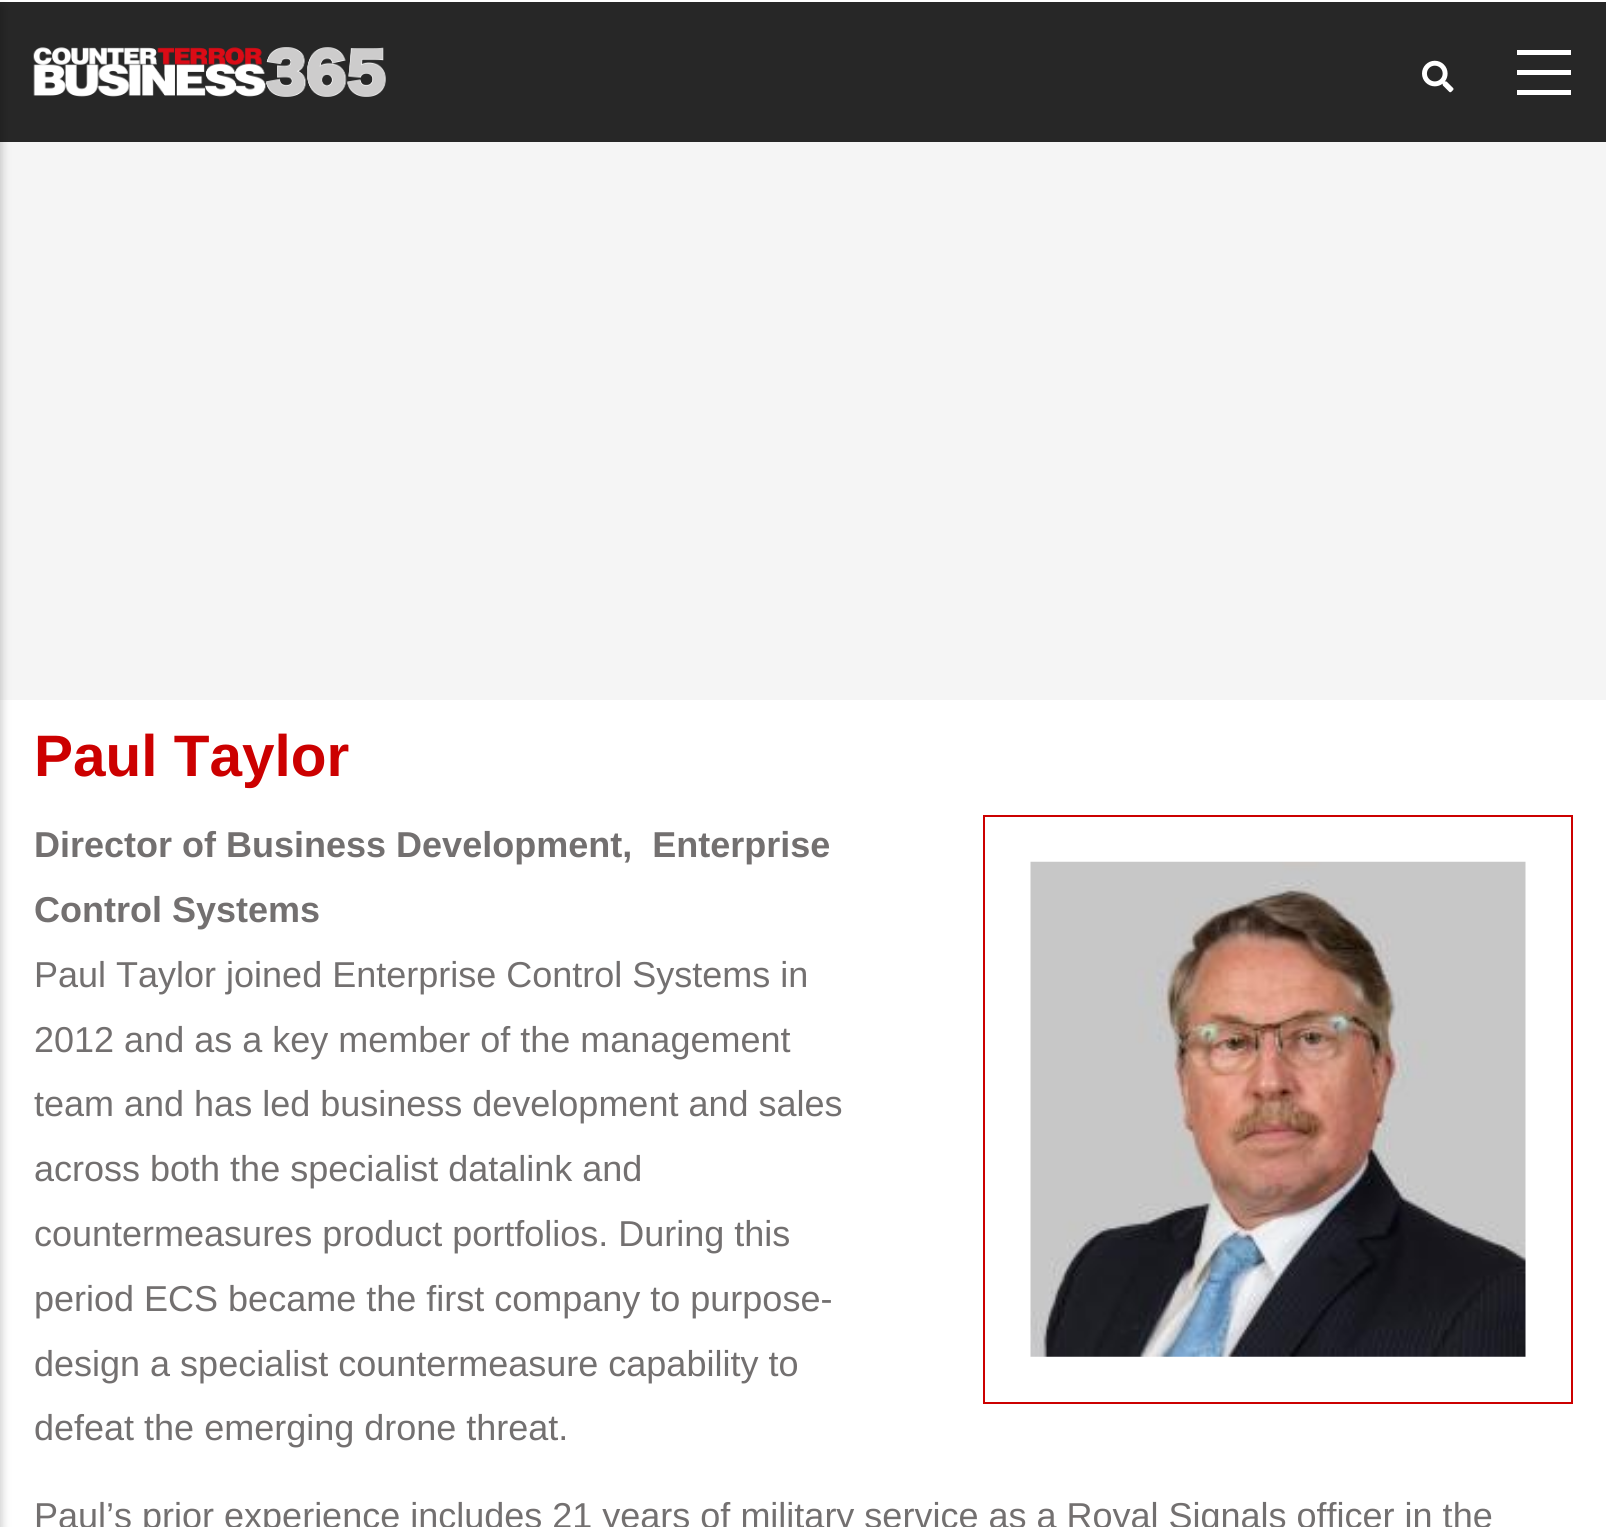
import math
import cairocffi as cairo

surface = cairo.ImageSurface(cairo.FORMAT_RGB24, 1606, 1527)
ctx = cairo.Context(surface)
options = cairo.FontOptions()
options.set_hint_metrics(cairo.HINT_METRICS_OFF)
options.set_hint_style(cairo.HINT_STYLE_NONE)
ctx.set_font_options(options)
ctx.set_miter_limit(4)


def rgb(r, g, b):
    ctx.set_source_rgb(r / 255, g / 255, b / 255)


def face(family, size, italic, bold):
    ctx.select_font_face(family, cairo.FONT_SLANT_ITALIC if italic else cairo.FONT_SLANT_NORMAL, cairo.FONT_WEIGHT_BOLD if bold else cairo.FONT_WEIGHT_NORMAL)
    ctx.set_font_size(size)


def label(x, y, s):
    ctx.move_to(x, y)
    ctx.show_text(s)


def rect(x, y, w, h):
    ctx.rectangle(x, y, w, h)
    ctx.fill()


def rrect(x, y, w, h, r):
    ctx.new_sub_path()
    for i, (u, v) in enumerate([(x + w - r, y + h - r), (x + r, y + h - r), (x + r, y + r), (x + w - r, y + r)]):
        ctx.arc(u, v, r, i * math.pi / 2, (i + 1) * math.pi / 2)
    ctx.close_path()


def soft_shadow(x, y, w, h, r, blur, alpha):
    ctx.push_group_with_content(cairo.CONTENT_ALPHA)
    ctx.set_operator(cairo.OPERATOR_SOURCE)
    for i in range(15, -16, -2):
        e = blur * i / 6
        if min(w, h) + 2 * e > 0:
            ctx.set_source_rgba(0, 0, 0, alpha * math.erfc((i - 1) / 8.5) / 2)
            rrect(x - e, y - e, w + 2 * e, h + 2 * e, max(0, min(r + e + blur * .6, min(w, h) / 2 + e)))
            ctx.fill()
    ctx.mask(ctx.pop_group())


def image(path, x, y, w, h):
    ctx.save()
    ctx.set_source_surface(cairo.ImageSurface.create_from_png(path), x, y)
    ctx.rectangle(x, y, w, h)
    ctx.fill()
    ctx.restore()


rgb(255, 255, 255)
ctx.paint()
rgb(39, 39, 39)
rect(0, 2, 1606, 140)
rgb(245, 245, 245)
rect(0, 142, 1606, 558)
rgb(0, 0, 0)
soft_shadow(-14, 7, 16, 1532, 0, 4.5, 0.2)
image('image0.png', 1422, 60, 32, 33)
rgb(255, 255, 255)
rect(1517, 50, 54, 5)
rect(1517, 70, 54, 5)
rect(1517, 90, 54, 5)
image('image1.png', 33, 47, 353, 50)
face('Liberation Sans', 58.5, 0, 1)
rgb(204, 0, 0)
label(34, 776, 'Paul Taylor')
ctx.rectangle(984, 816, 588, 587)
ctx.stroke()
image('image2.png', 1030, 861, 496, 496)
face('Liberation Sans', 36, 0, 1)
rgb(115, 112, 112)
label(34, 857, 'Director of Business Development,  Enterprise')
label(34, 922, 'Control Systems')
face('Liberation Sans', 36, 0, 0)
label(34, 987, 'Paul Taylor joined Enterprise Control Systems in')
label(34, 1052, '2012 and as a key member of the management')
label(34, 1116, 'team and has led business development and sales')
label(34, 1181, 'across both the specialist datalink and')
label(34, 1246, 'countermeasures product portfolios. During this')
label(34, 1311, 'period ECS became the first company to purpose-')
label(34, 1376, 'design a specialist countermeasure capability to')
label(34, 1440, 'defeat the emerging drone threat.')
label(34, 1528, 'Paul’s prior experience includes 21 years of military service as a Royal Signals officer in the')
surface.write_to_png('render.png')
